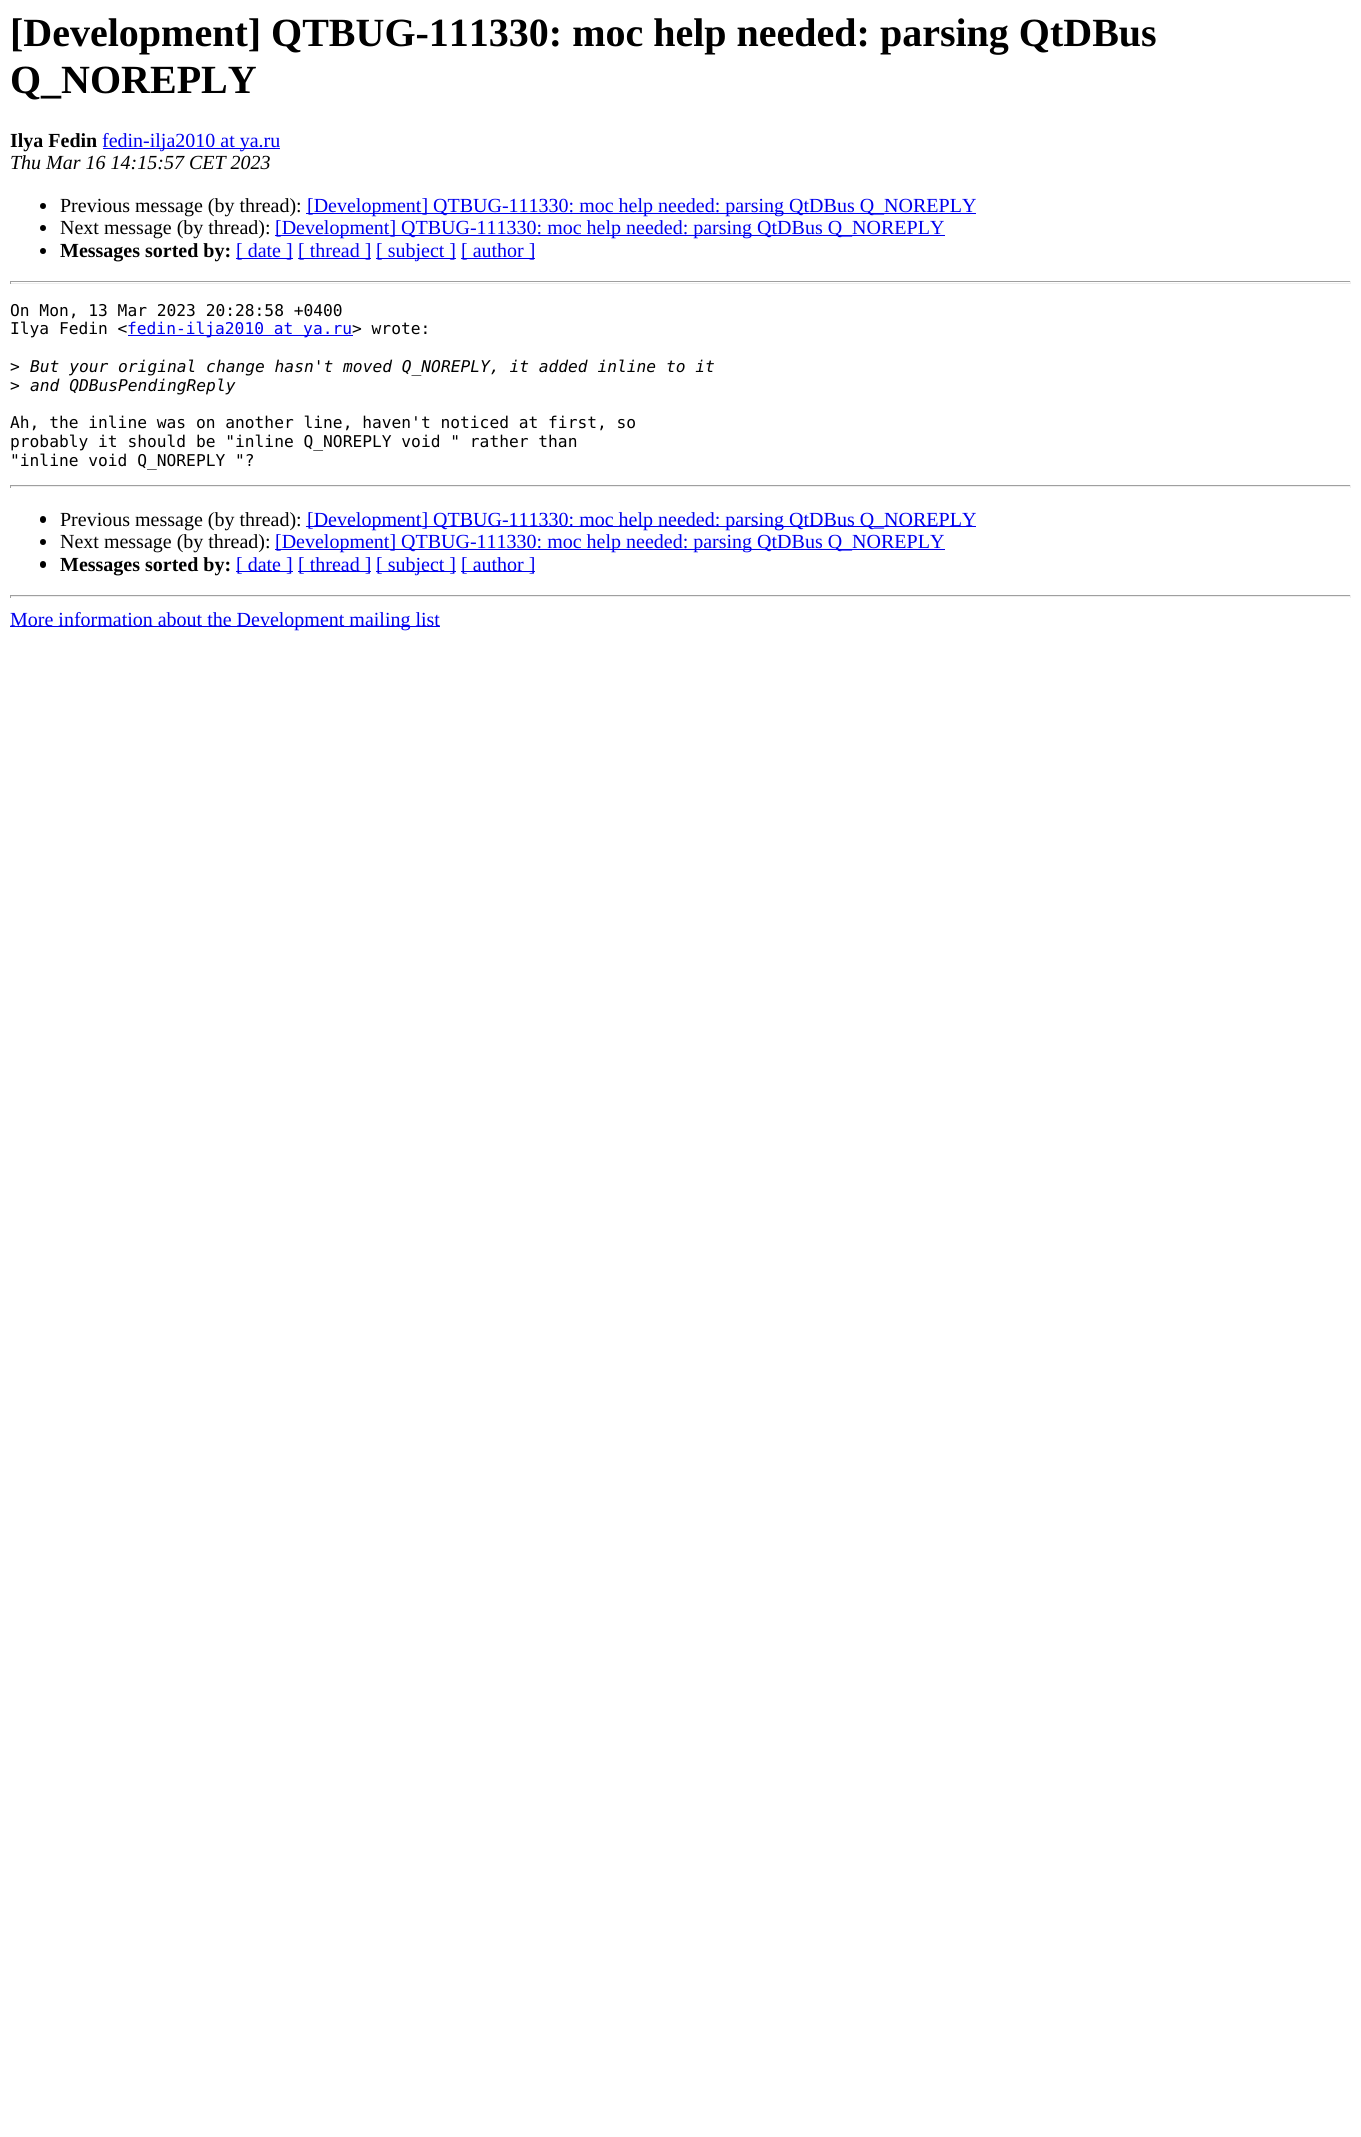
import math
import cairocffi as cairo

surface = cairo.ImageSurface(cairo.FORMAT_RGB24, 1361, 2137)
ctx = cairo.Context(surface)
options = cairo.FontOptions()
options.set_hint_metrics(cairo.HINT_METRICS_OFF)
options.set_hint_style(cairo.HINT_STYLE_NONE)
ctx.set_font_options(options)
ctx.set_miter_limit(4)


def rgb(r, g, b):
    ctx.set_source_rgb(r / 255, g / 255, b / 255)


def face(family, size, italic, bold):
    ctx.select_font_face(family, cairo.FONT_SLANT_ITALIC if italic else cairo.FONT_SLANT_NORMAL, cairo.FONT_WEIGHT_BOLD if bold else cairo.FONT_WEIGHT_NORMAL)
    ctx.set_font_size(size)


def label(x, y, s):
    ctx.move_to(x, y)
    ctx.show_text(s)


def rect(x, y, w, h):
    ctx.rectangle(x, y, w, h)
    ctx.fill()


def rrect(x, y, w, h, r):
    ctx.new_sub_path()
    for i, (u, v) in enumerate([(x + w - r, y + h - r), (x + r, y + h - r), (x + r, y + r), (x + w - r, y + r)]):
        ctx.arc(u, v, r, i * math.pi / 2, (i + 1) * math.pi / 2)
    ctx.close_path()


rgb(255, 255, 255)
ctx.paint()
face('Liberation Serif', 40, 0, 1)
rgb(0, 0, 0)
label(10, 46, '[Development] QTBUG-111330: moc help needed: parsing QtDBus')
label(10, 93, 'Q_NOREPLY')
face('Liberation Serif', 20, 0, 1)
label(10, 147, 'Ilya Fedin')
rgb(0, 0, 238)
rect(103, 148, 177, 1)
face('Liberation Serif', 20, 0, 0)
label(102, 147, 'fedin-ilja2010 at ya.ru')
face('Liberation Serif', 20, 1, 0)
rgb(0, 0, 0)
label(10, 169, 'Thu Mar 16 14:15:57 CET 2023')
ctx.new_path()
ctx.arc(43, 206, 3, 0, 2 * math.pi)
ctx.fill()
face('Liberation Serif', 20, 0, 0)
label(60, 212, 'Previous message (by thread):')
rgb(0, 0, 238)
rect(306, 213, 670, 1)
label(307, 212, '[Development] QTBUG-111330: moc help needed: parsing QtDBus Q_NOREPLY')
rgb(0, 0, 0)
ctx.new_path()
ctx.arc(43, 228, 3, 0, 2 * math.pi)
ctx.fill()
label(60, 234, 'Next message (by thread):')
rgb(0, 0, 238)
rect(275, 235, 670, 1)
label(275, 234, '[Development] QTBUG-111330: moc help needed: parsing QtDBus Q_NOREPLY')
rgb(0, 0, 0)
ctx.new_path()
ctx.arc(43, 251, 3, 0, 2 * math.pi)
ctx.fill()
face('Liberation Serif', 20, 0, 1)
label(60, 257, 'Messages sorted by:')
rgb(0, 0, 238)
rect(236, 258, 57, 1)
face('Liberation Serif', 20, 0, 0)
label(236, 257, '[ date ]')
rect(298, 258, 73, 1)
label(298, 257, '[ thread ]')
rect(376, 258, 80, 1)
label(376, 257, '[ subject ]')
rect(461, 258, 74, 1)
label(461, 257, '[ author ]')
rgb(159, 159, 159)
rect(10, 281, 1341, 1)
rgb(238, 238, 238)
rect(1350, 281, 1, 3)
rect(10, 283, 1341, 1)
rgb(159, 159, 159)
rect(10, 281, 1, 3)
face('DejaVu Sans Mono', 16.25, 0, 0)
rgb(0, 0, 0)
label(10, 316, 'On Mon, 13 Mar 2023 20:28:58 +0400')
label(10, 334, 'Ilya Fedin <')
rgb(0, 0, 238)
rect(128, 335, 225, 1)
label(127, 334, 'fedin-ilja2010 at ya.ru')
rgb(0, 0, 0)
label(352, 334, '> wrote:')
label(10, 372, '>')
face('DejaVu Sans Mono', 16.25, 1, 0)
label(30, 372, 'But your original change hasn\'t moved Q_NOREPLY, it added inline to it')
face('DejaVu Sans Mono', 16.25, 0, 0)
label(10, 391, '>')
face('DejaVu Sans Mono', 16.25, 1, 0)
label(30, 391, 'and QDBusPendingReply')
face('DejaVu Sans Mono', 16.25, 0, 0)
label(10, 428, 'Ah, the inline was on another line, haven\'t noticed at first, so')
label(10, 447, 'probably it should be "inline Q_NOREPLY void " rather than')
label(10, 466, '"inline void Q_NOREPLY "?')
rgb(159, 159, 159)
rect(10, 485, 1341, 1)
rgb(238, 238, 238)
rect(1350, 485, 1, 3)
rect(10, 486, 1341, 1)
rgb(159, 159, 159)
rect(10, 485, 1, 3)
rgb(0, 0, 0)
rrect(40, 516, 6, 7, 3)
ctx.fill()
face('Liberation Serif', 20, 0, 0)
label(60, 526, 'Previous message (by thread):')
rgb(0, 0, 238)
rect(306, 526, 670, 1)
label(307, 526, '[Development] QTBUG-111330: moc help needed: parsing QtDBus Q_NOREPLY')
rgb(0, 0, 0)
ctx.new_path()
ctx.arc(43, 542, 3, 0, 2 * math.pi)
ctx.fill()
label(60, 548, 'Next message (by thread):')
rgb(0, 0, 238)
rect(275, 549, 670, 1)
label(275, 548, '[Development] QTBUG-111330: moc help needed: parsing QtDBus Q_NOREPLY')
rgb(0, 0, 0)
rrect(40, 561, 6, 7, 3)
ctx.fill()
face('Liberation Serif', 20, 0, 1)
label(60, 571, 'Messages sorted by:')
rgb(0, 0, 238)
rect(236, 571, 57, 1)
face('Liberation Serif', 20, 0, 0)
label(236, 571, '[ date ]')
rect(298, 571, 73, 1)
label(298, 571, '[ thread ]')
rect(376, 571, 80, 1)
label(376, 571, '[ subject ]')
rect(461, 571, 74, 1)
label(461, 571, '[ author ]')
rgb(159, 159, 159)
rect(10, 595, 1341, 1)
rgb(238, 238, 238)
rect(1350, 595, 1, 3)
rect(10, 596, 1341, 1)
rgb(159, 159, 159)
rect(10, 595, 1, 3)
rgb(0, 0, 238)
rect(10, 626, 430, 1)
label(10, 626, 'More information about the Development mailing list')
surface.write_to_png('render.png')
